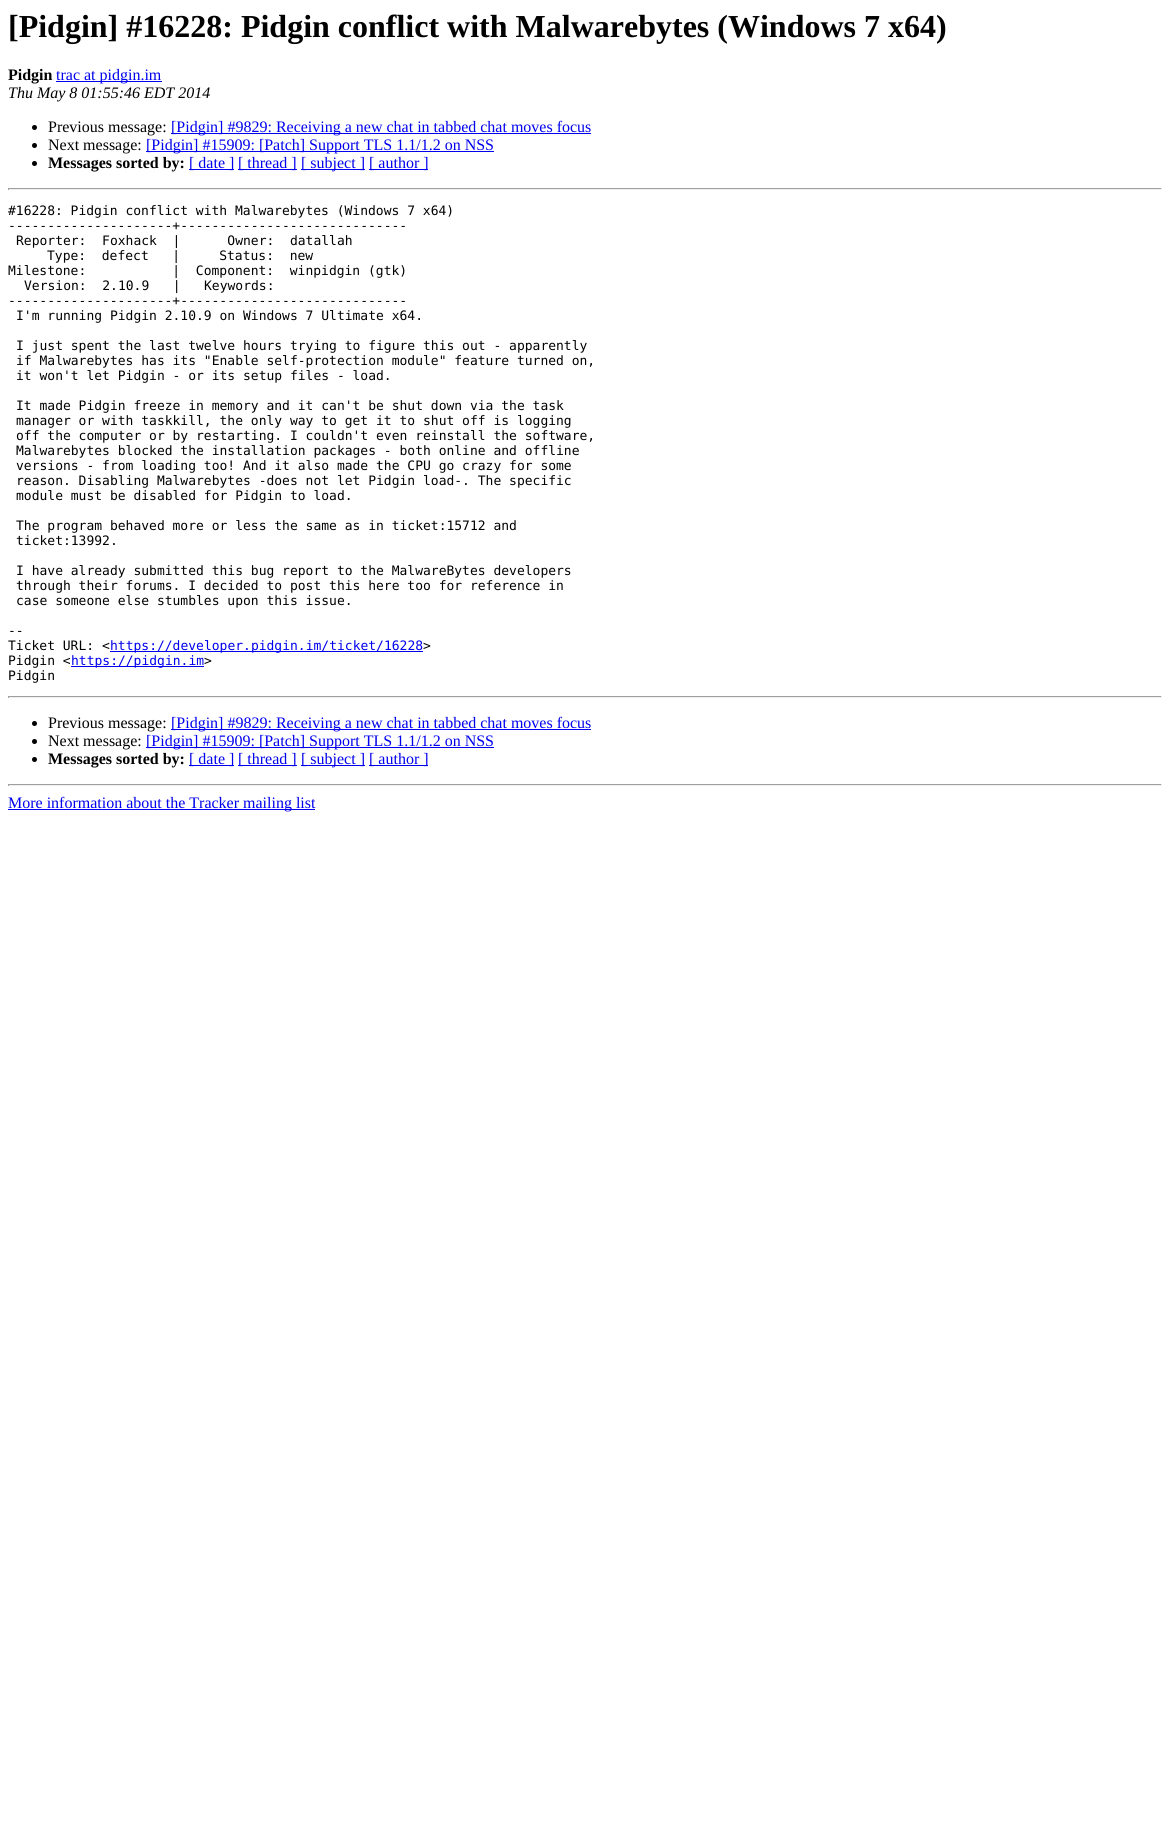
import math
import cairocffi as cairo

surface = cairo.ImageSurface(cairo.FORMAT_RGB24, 1170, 1841)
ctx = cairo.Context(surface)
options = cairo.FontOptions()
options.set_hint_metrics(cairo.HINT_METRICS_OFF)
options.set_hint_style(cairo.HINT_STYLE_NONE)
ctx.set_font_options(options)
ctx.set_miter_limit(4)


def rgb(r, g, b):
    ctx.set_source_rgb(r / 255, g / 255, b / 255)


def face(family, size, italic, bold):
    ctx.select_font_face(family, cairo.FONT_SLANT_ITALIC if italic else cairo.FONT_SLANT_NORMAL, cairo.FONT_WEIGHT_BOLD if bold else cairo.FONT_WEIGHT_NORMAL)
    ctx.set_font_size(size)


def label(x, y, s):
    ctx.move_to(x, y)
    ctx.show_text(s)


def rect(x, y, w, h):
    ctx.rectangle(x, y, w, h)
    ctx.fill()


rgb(255, 255, 255)
ctx.paint()
face('Liberation Serif', 32, 0, 1)
rgb(0, 0, 0)
label(8, 37, '[Pidgin] #16228: Pidgin conflict with Malwarebytes (Windows 7 x64)')
face('Liberation Serif', 16, 0, 1)
label(8, 80, 'Pidgin')
rgb(0, 0, 238)
rect(56, 81, 106, 1)
face('Liberation Serif', 16, 0, 0)
label(56, 80, 'trac at pidgin.im')
face('Liberation Serif', 16, 1, 0)
rgb(0, 0, 0)
label(8, 98, 'Thu May 8 01:55:46 EDT 2014')
ctx.new_path()
ctx.arc(34.5, 127.5, 2.5, 0, 2 * math.pi)
ctx.fill()
face('Liberation Serif', 16, 0, 0)
label(48, 132, 'Previous message:')
rgb(0, 0, 238)
rect(171, 133, 420, 1)
label(171, 132, '[Pidgin] #9829: Receiving a new chat in tabbed chat moves focus')
rgb(0, 0, 0)
ctx.new_path()
ctx.arc(34.5, 145.5, 2.5, 0, 2 * math.pi)
ctx.fill()
label(48, 150, 'Next message:')
rgb(0, 0, 238)
rect(146, 151, 348, 1)
label(146, 150, '[Pidgin] #15909: [Patch] Support TLS 1.1/1.2 on NSS')
rgb(0, 0, 0)
ctx.new_path()
ctx.arc(34.5, 163.5, 2.5, 0, 2 * math.pi)
ctx.fill()
face('Liberation Serif', 16, 0, 1)
label(48, 168, 'Messages sorted by:')
rgb(0, 0, 238)
rect(189, 169, 45, 1)
face('Liberation Serif', 16, 0, 0)
label(189, 168, '[ date ]')
rect(238, 169, 59, 1)
label(238, 168, '[ thread ]')
rect(301, 169, 64, 1)
label(301, 168, '[ subject ]')
rect(369, 169, 59, 1)
label(369, 168, '[ author ]')
rgb(159, 159, 159)
rect(8, 188, 1154, 1)
rgb(238, 238, 238)
rect(1161, 188, 1, 2)
rect(8, 189, 1154, 1)
rgb(159, 159, 159)
rect(8, 188, 1, 2)
face('DejaVu Sans Mono', 13, 0, 0)
rgb(0, 0, 0)
label(8, 215, '#16228: Pidgin conflict with Malwarebytes (Windows 7 x64)')
label(8, 230, '---------------------+-----------------------------')
label(16, 245, 'Reporter:  Foxhack  |      Owner:  datallah')
label(47, 260, 'Type:  defect   |     Status:  new')
label(8, 275, 'Milestone:           |  Component:  winpidgin (gtk)')
label(24, 290, 'Version:  2.10.9   |   Keywords:')
label(8, 305, '---------------------+-----------------------------')
label(16, 320, 'I\'m running Pidgin 2.10.9 on Windows 7 Ultimate x64.')
label(16, 350, 'I just spent the last twelve hours trying to figure this out - apparently')
label(16, 365, 'if Malwarebytes has its "Enable self-protection module" feature turned on,')
label(16, 380, 'it won\'t let Pidgin - or its setup files - load.')
label(16, 410, 'It made Pidgin freeze in memory and it can\'t be shut down via the task')
label(16, 425, 'manager or with taskkill, the only way to get it to shut off is logging')
label(16, 440, 'off the computer or by restarting. I couldn\'t even reinstall the software,')
label(16, 455, 'Malwarebytes blocked the installation packages - both online and offline')
label(16, 470, 'versions - from loading too! And it also made the CPU go crazy for some')
label(16, 485, 'reason. Disabling Malwarebytes -does not let Pidgin load-. The specific')
label(16, 500, 'module must be disabled for Pidgin to load.')
label(16, 530, 'The program behaved more or less the same as in ticket:15712 and')
label(16, 545, 'ticket:13992.')
label(16, 575, 'I have already submitted this bug report to the MalwareBytes developers')
label(16, 590, 'through their forums. I decided to post this here too for reference in')
label(16, 605, 'case someone else stumbles upon this issue.')
label(8, 635, '--')
label(8, 650, 'Ticket URL: <')
rgb(0, 0, 238)
rect(110, 651, 313, 1)
label(110, 650, 'https://developer.pidgin.im/ticket/16228')
rgb(0, 0, 0)
label(423, 650, '>')
label(8, 665, 'Pidgin <')
rgb(0, 0, 238)
rect(71, 666, 133, 1)
label(71, 665, 'https://pidgin.im')
rgb(0, 0, 0)
label(204, 665, '>')
label(8, 680, 'Pidgin')
rgb(159, 159, 159)
rect(8, 696, 1154, 1)
rgb(238, 238, 238)
rect(1161, 696, 1, 2)
rect(8, 697, 1154, 1)
rgb(159, 159, 159)
rect(8, 696, 1, 2)
rgb(0, 0, 0)
ctx.new_path()
ctx.arc(34.5, 723.5, 2.5, 0, 2 * math.pi)
ctx.fill()
face('Liberation Serif', 16, 0, 0)
label(48, 728, 'Previous message:')
rgb(0, 0, 238)
rect(171, 729, 420, 1)
label(171, 728, '[Pidgin] #9829: Receiving a new chat in tabbed chat moves focus')
rgb(0, 0, 0)
ctx.new_path()
ctx.arc(34.5, 741.5, 2.5, 0, 2 * math.pi)
ctx.fill()
label(48, 746, 'Next message:')
rgb(0, 0, 238)
rect(146, 747, 348, 1)
label(146, 746, '[Pidgin] #15909: [Patch] Support TLS 1.1/1.2 on NSS')
rgb(0, 0, 0)
ctx.new_path()
ctx.arc(34.5, 759.5, 2.5, 0, 2 * math.pi)
ctx.fill()
face('Liberation Serif', 16, 0, 1)
label(48, 764, 'Messages sorted by:')
rgb(0, 0, 238)
rect(189, 765, 45, 1)
face('Liberation Serif', 16, 0, 0)
label(189, 764, '[ date ]')
rect(238, 765, 59, 1)
label(238, 764, '[ thread ]')
rect(301, 765, 64, 1)
label(301, 764, '[ subject ]')
rect(369, 765, 59, 1)
label(369, 764, '[ author ]')
rgb(159, 159, 159)
rect(8, 784, 1154, 1)
rgb(238, 238, 238)
rect(1161, 784, 1, 2)
rect(8, 785, 1154, 1)
rgb(159, 159, 159)
rect(8, 784, 1, 2)
rgb(0, 0, 238)
rect(8, 809, 307, 1)
label(8, 808, 'More information about the Tracker mailing list')
surface.write_to_png('render.png')
